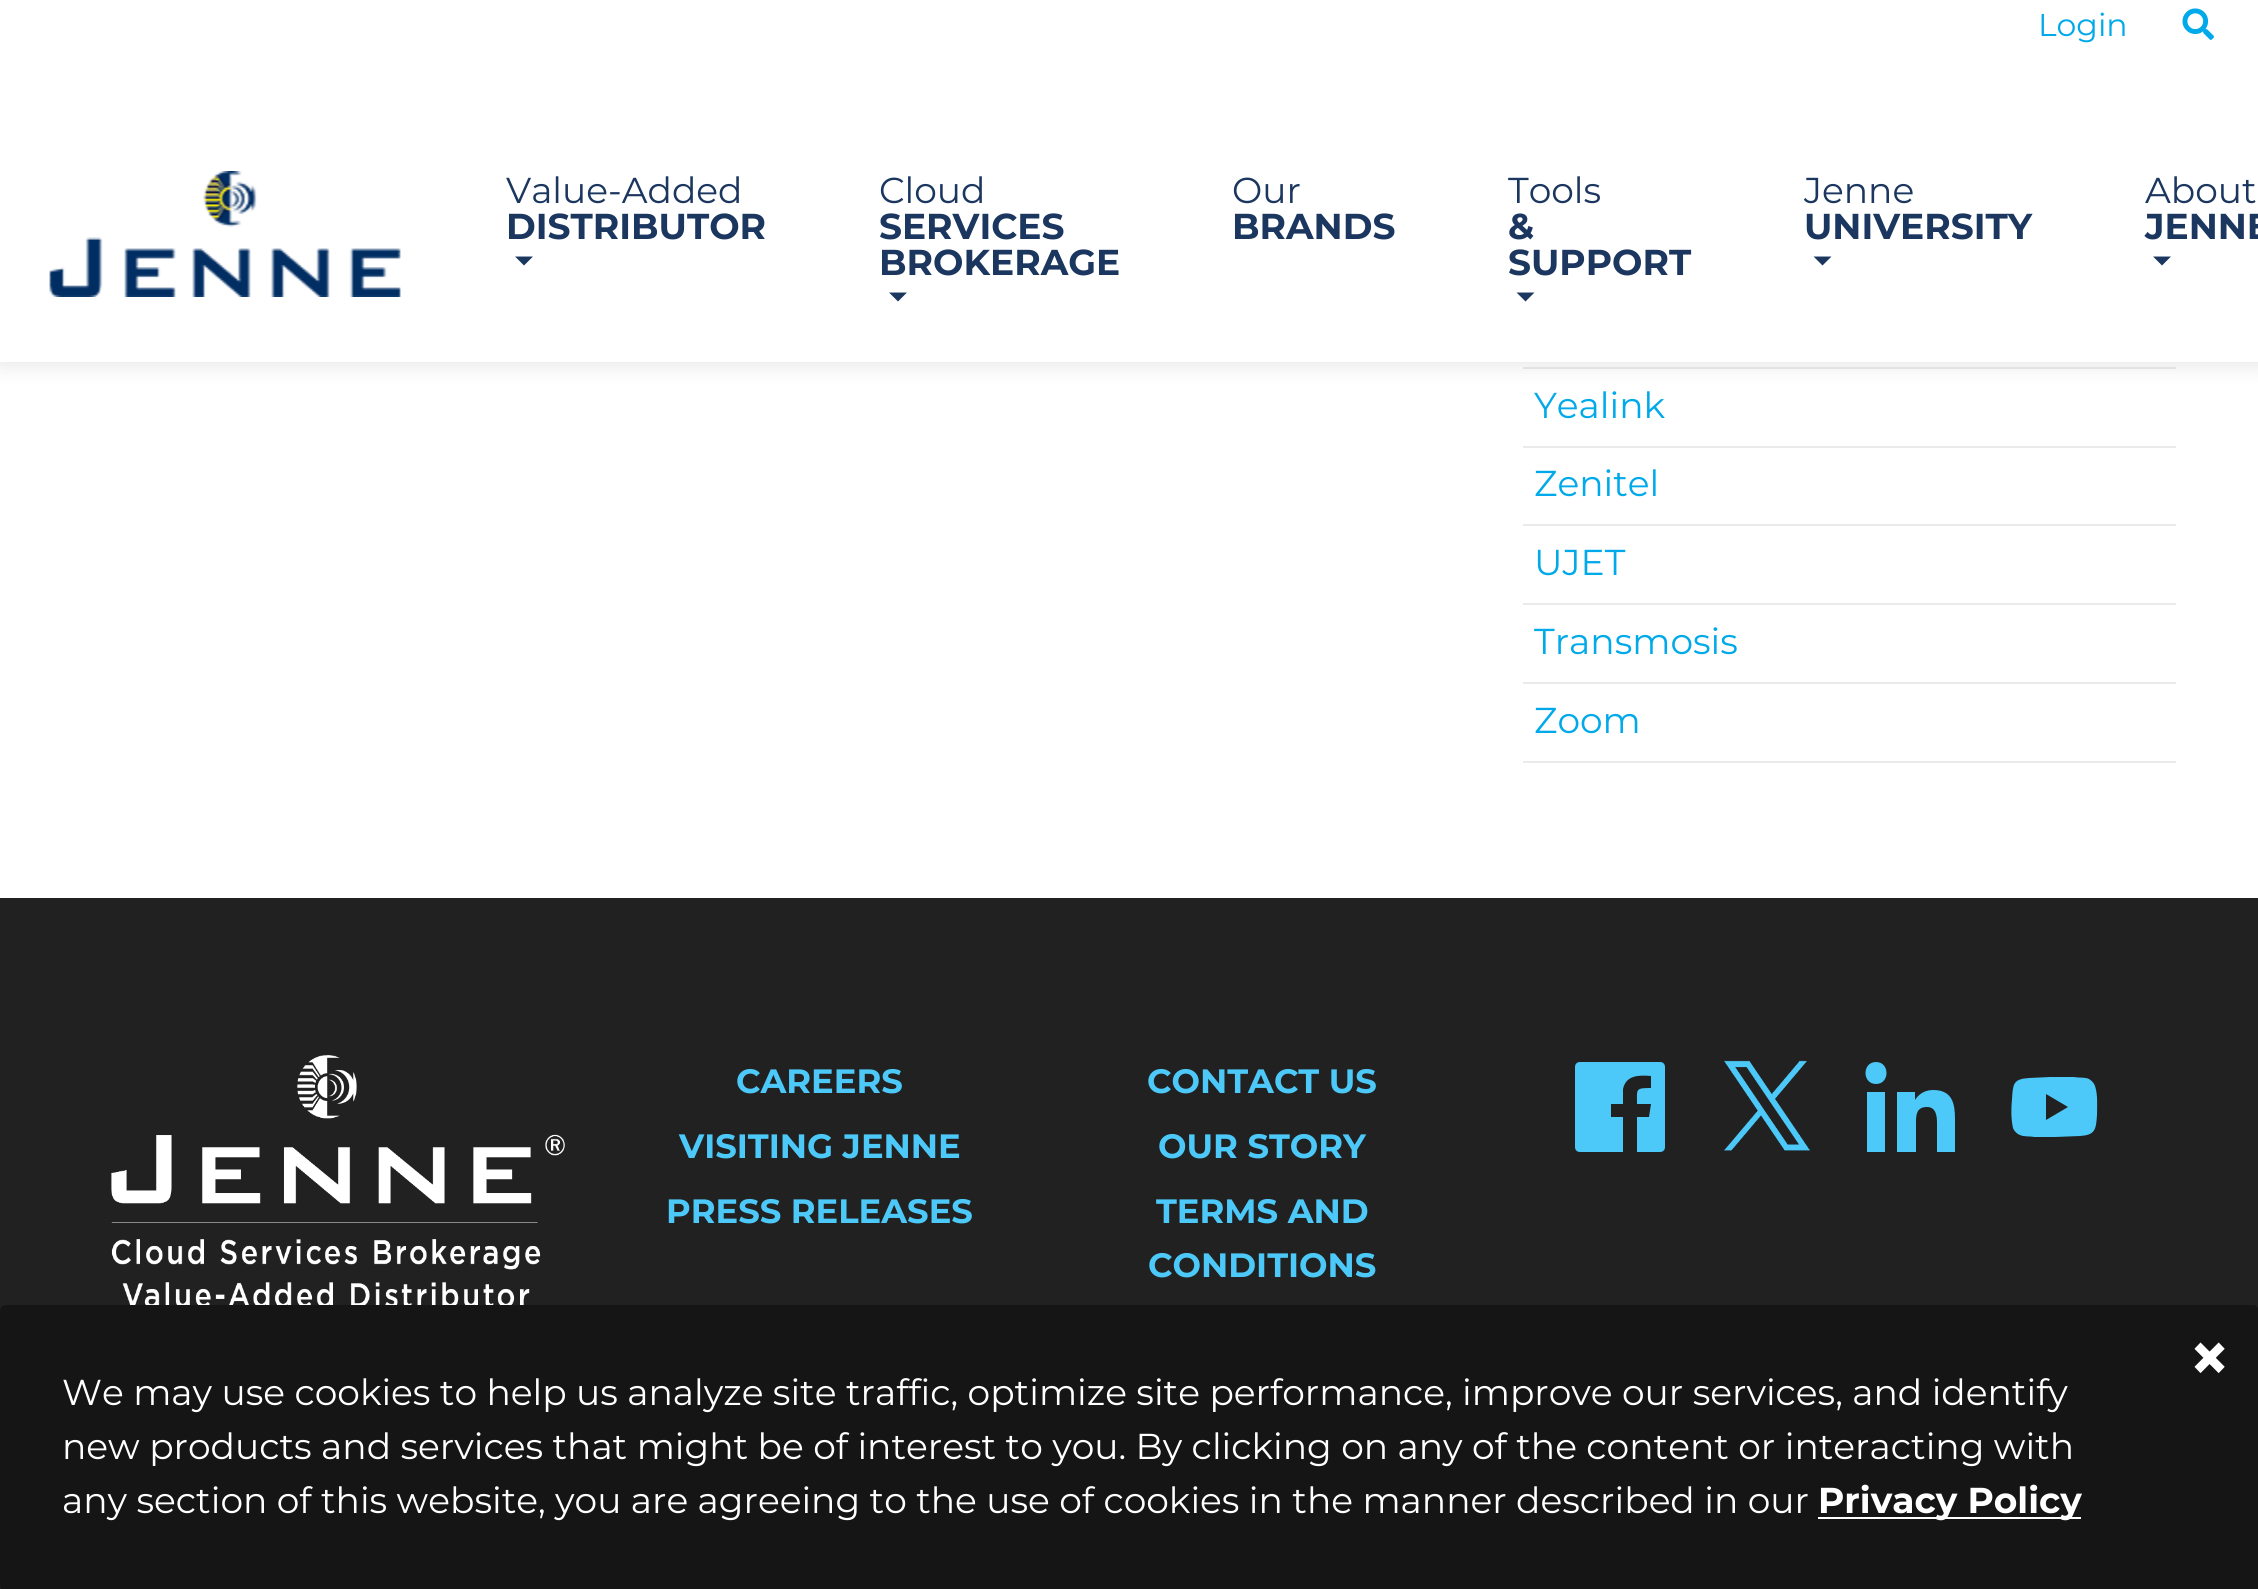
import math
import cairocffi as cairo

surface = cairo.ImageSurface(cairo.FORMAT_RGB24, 2258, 1589)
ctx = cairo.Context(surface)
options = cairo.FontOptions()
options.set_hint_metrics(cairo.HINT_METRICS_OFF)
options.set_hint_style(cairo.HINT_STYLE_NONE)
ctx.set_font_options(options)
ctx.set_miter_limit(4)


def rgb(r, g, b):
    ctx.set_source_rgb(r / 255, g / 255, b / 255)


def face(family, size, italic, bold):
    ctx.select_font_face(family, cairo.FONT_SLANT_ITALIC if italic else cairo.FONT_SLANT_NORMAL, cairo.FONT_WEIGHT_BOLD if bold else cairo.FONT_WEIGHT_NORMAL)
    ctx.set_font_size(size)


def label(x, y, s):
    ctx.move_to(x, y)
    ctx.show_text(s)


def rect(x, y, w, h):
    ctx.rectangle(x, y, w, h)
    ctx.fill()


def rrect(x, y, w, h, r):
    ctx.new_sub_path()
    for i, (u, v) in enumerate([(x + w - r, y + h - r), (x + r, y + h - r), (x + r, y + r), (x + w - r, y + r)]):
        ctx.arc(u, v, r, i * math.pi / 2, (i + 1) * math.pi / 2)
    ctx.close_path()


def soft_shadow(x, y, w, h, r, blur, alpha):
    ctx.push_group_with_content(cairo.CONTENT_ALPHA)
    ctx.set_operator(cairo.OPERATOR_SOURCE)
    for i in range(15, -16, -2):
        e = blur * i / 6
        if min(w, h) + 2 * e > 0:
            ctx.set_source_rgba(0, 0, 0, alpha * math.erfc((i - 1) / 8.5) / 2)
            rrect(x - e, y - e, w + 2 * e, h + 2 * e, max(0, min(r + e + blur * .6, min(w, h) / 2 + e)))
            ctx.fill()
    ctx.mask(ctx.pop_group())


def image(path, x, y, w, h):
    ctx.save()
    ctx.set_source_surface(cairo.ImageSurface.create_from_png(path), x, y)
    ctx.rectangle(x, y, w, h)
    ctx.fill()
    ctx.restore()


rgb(255, 255, 255)
ctx.paint()
rgb(234, 234, 234)
rect(1523, 367, 653, 2)
rgb(0, 0, 0)
soft_shadow(0, -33, 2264, 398, 0, 11, 0.1)
rgb(255, 255, 255)
rect(0, 0, 2258, 362)
face('Montserrat', 31.5, 0, 0)
rgb(0, 169, 233)
label(2038, 36, 'Login')
image('image0.png', 2182, 8, 32, 32)
image('image1.png', 49, 171, 352, 126)
face('Montserrat', 36, 0, 0)
rgb(27, 54, 95)
label(506, 203, 'Value-Added')
face('Montserrat', 36, 0, 1)
label(506, 239, 'DISTRIBUTOR')
ctx.new_path()
ctx.move_to(515, 256.5)
ctx.line_to(533, 256.5)
ctx.line_to(524, 265.5)
ctx.close_path()
ctx.fill()
face('Montserrat', 36, 0, 0)
label(879, 203, 'Cloud')
face('Montserrat', 36, 0, 1)
label(879, 239, 'SERVICES')
label(879, 275, 'BROKERAGE')
ctx.new_path()
ctx.move_to(889, 292.5)
ctx.line_to(907, 292.5)
ctx.line_to(898, 301.5)
ctx.close_path()
ctx.fill()
face('Montserrat', 36, 0, 0)
label(1232, 203, 'Our')
face('Montserrat', 36, 0, 1)
label(1232, 239, 'BRANDS')
face('Montserrat', 36, 0, 0)
label(1508, 203, 'Tools')
face('Montserrat', 36, 0, 1)
label(1508, 239, '&')
label(1508, 275, 'SUPPORT')
ctx.new_path()
ctx.move_to(1516.5, 292.5)
ctx.line_to(1534.5, 292.5)
ctx.line_to(1525.5, 301.5)
ctx.close_path()
ctx.fill()
face('Montserrat', 36, 0, 0)
label(1804, 203, 'Jenne')
face('Montserrat', 36, 0, 1)
label(1804, 239, 'UNIVERSITY')
ctx.new_path()
ctx.move_to(1813.5, 256.5)
ctx.line_to(1831.5, 256.5)
ctx.line_to(1822.5, 265.5)
ctx.close_path()
ctx.fill()
face('Montserrat', 36, 0, 0)
label(2145, 203, 'About')
face('Montserrat', 36, 0, 1)
label(2145, 239, 'JENNE')
ctx.new_path()
ctx.move_to(2153, 256.5)
ctx.line_to(2171, 256.5)
ctx.line_to(2162, 265.5)
ctx.close_path()
ctx.fill()
rgb(234, 234, 234)
rect(1523, 446, 653, 2)
face('Montserrat', 36, 0, 0)
rgb(0, 169, 233)
label(1534, 418, 'Yealink')
rgb(234, 234, 234)
rect(1523, 524, 653, 2)
rgb(0, 169, 233)
label(1534, 496, 'Zenitel')
rgb(234, 234, 234)
rect(1523, 603, 653, 2)
rgb(0, 169, 233)
label(1534, 575, 'UJET')
rgb(234, 234, 234)
rect(1523, 682, 653, 2)
rgb(0, 169, 233)
label(1534, 654, 'Transmosis')
rgb(234, 234, 234)
rect(1523, 761, 653, 2)
rgb(0, 169, 233)
label(1534, 733, 'Zoom')
rgb(33, 33, 33)
rect(0, 898, 2258, 691)
image('image2.png', 111, 1055, 454, 250)
face('Montserrat', 33.75, 0, 1)
rgb(76, 201, 248)
label(736, 1093, 'CAREERS')
label(1147, 1093, 'CONTACT US')
label(679, 1158, 'VISITING JENNE')
label(1158, 1158, 'OUR STORY')
label(666, 1223, 'PRESS RELEASES')
label(1156, 1223, 'TERMS AND')
label(1148, 1277, 'CONDITIONS')
ctx.new_path()
ctx.move_to(1665, 1067)
ctx.line_to(1665, 1147)
ctx.curve_to(1665, 1150, 1663, 1152, 1660, 1152)
ctx.line_to(1637, 1152)
ctx.line_to(1637, 1117)
ctx.line_to(1649, 1117)
ctx.line_to(1651, 1104)
ctx.line_to(1637, 1104)
ctx.curve_to(1637, 1089, 1635, 1088, 1651, 1088)
ctx.line_to(1651, 1076)
ctx.curve_to(1639, 1075, 1626, 1075, 1623, 1089)
ctx.line_to(1623, 1104)
ctx.line_to(1611, 1104)
ctx.line_to(1611, 1117)
ctx.line_to(1623, 1117)
ctx.line_to(1623, 1152)
ctx.line_to(1580, 1152)
ctx.curve_to(1577, 1152, 1575, 1150, 1575, 1147)
ctx.line_to(1575, 1067)
ctx.curve_to(1575, 1064, 1577, 1062, 1580, 1062)
ctx.line_to(1660, 1062)
ctx.curve_to(1663, 1062, 1665, 1064, 1665, 1067)
ctx.close_path()
ctx.fill()
image('image3.png', 1724, 1060, 86, 91)
ctx.new_path()
ctx.move_to(1885, 1152)
ctx.line_to(1867, 1152)
ctx.line_to(1867, 1092)
ctx.line_to(1885, 1092)
ctx.close_path()
ctx.move_to(1876, 1084)
ctx.curve_to(1862, 1084, 1862, 1062, 1876, 1062)
ctx.curve_to(1890, 1062, 1890, 1084, 1876, 1084)
ctx.close_path()
ctx.move_to(1955, 1152)
ctx.line_to(1937, 1152)
ctx.line_to(1937, 1123)
ctx.curve_to(1937, 1116, 1936, 1107, 1927, 1107)
ctx.curve_to(1917, 1107, 1916, 1114, 1916, 1122)
ctx.line_to(1916, 1152)
ctx.line_to(1897, 1152)
ctx.line_to(1897, 1092)
ctx.line_to(1915, 1092)
ctx.line_to(1915, 1100)
ctx.curve_to(1918, 1095, 1924, 1090, 1933, 1090)
ctx.curve_to(1952, 1090, 1955, 1103, 1955, 1119)
ctx.close_path()
ctx.fill()
ctx.new_path()
ctx.move_to(2095, 1086)
ctx.curve_to(2094, 1083, 2092, 1081, 2089, 1079)
ctx.curve_to(2085, 1077, 2079, 1078, 2074, 1077)
ctx.line_to(2050, 1077)
ctx.line_to(2029, 1078)
ctx.curve_to(2013, 1079, 2013, 1084, 2012, 1099)
ctx.curve_to(2011, 1109, 2011, 1119, 2013, 1128)
ctx.curve_to(2014, 1131, 2017, 1134, 2020, 1135)
ctx.curve_to(2024, 1137, 2030, 1136, 2034, 1137)
ctx.line_to(2055, 1137)
ctx.line_to(2080, 1136)
ctx.curve_to(2095, 1135, 2096, 1130, 2097, 1115)
ctx.curve_to(2097, 1106, 2098, 1095, 2095, 1086)
ctx.close_path()
ctx.move_to(2046, 1120)
ctx.line_to(2046, 1094)
ctx.line_to(2068, 1107)
ctx.close_path()
ctx.fill()
rgb(21, 21, 21)
rrect(0, 1305, 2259, 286, 6)
ctx.fill()
face('Montserrat', 72, 0, 1)
rgb(255, 255, 255)
label(2188, 1383, '×')
face('Montserrat', 36, 0, 0)
label(62, 1405, 'We may use cookies to help us analyze site traffic, optimize site performance, improve our services, and identify')
label(62, 1459, 'new products and services that might be of interest to you. By clicking on any of the content or interacting with')
label(62, 1513, 'any section of this website, you are agreeing to the use of cookies in the manner described in our')
rect(1818, 1517, 263, 2)
face('Montserrat', 36, 0, 1)
label(1818, 1513, 'Privacy Policy')
surface.write_to_png('render.png')
